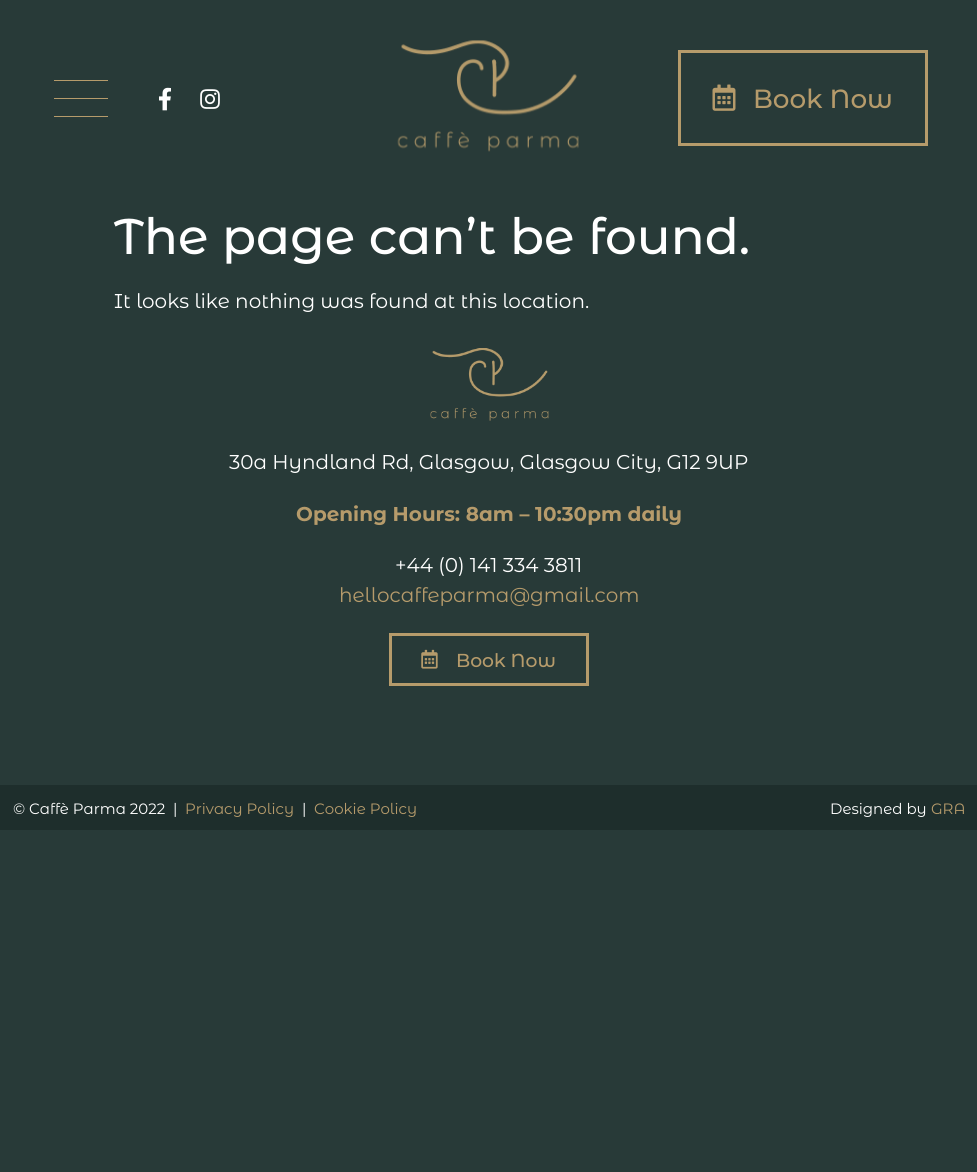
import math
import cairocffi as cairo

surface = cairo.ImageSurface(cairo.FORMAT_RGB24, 977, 1172)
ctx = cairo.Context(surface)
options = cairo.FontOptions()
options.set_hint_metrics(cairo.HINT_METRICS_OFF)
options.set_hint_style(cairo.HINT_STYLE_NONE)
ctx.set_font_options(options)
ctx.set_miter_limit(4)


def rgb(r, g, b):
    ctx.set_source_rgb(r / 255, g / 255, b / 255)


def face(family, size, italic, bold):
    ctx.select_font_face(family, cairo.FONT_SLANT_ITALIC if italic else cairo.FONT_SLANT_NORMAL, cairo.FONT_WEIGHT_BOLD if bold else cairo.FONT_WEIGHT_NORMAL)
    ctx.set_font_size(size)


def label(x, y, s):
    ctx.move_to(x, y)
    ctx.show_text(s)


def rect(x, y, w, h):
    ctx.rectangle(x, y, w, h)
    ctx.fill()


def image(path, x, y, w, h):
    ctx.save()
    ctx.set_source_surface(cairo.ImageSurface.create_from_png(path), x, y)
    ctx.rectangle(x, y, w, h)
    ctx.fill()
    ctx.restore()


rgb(40, 58, 56)
ctx.paint()
rgb(182, 155, 107)
rect(54, 80, 54, 1)
rect(54, 98, 54, 1)
rect(54, 116, 54, 1)
image('image0.png', 159, 87, 12, 24)
image('image1.png', 200, 89, 20, 20)
image('image2.png', 397, 40, 182, 112)
ctx.rectangle(679.5, 51.5, 247, 93)
ctx.set_line_width(3)
ctx.stroke()
image('image3.png', 712, 84, 24, 27)
face('Montserrat Alternates Medium', 26.25, 0, 0)
label(753, 108, 'Book Now')
face('Montserrat Alternates Medium', 50, 0, 0)
rgb(255, 255, 255)
label(114, 254, 'The page can’t be found.')
face('Montserrat Alternates', 20, 0, 0)
label(114, 308, 'It looks like nothing was found at this location.')
image('image4.png', 430, 348, 119, 73)
label(229, 469, '30a Hyndland Rd, Glasgow, Glasgow City, G12 9UP')
face('Montserrat Alternates', 20, 0, 1)
rgb(182, 155, 107)
label(296, 521, 'Opening Hours: 8am – 10:30pm daily')
face('Montserrat Alternates', 20, 0, 0)
rgb(255, 255, 255)
label(395, 572, '+44 (0) 141 334 3811')
rgb(182, 155, 107)
label(339, 602, 'hellocaffeparma@gmail.com')
ctx.rectangle(390.5, 634.5, 197, 50)
ctx.stroke()
image('image5.png', 421, 649, 17, 20)
face('Montserrat Alternates Medium', 18.75, 0, 0)
label(456, 667, 'Book Now')
rgb(30, 46, 44)
rect(0, 785, 977, 45)
face('Montserrat Alternates', 15, 0, 0)
rgb(255, 255, 255)
label(13, 814, '© Caffè Parma 2022')
label(173, 814, '|')
rgb(182, 155, 107)
label(185, 814, 'Privacy Policy')
rgb(255, 255, 255)
label(302, 814, '|')
rgb(182, 155, 107)
label(314, 814, 'Cookie Policy')
rgb(255, 255, 255)
label(830, 814, 'Designed by')
rgb(182, 155, 107)
label(931, 814, 'GRA')
surface.write_to_png('render.png')
